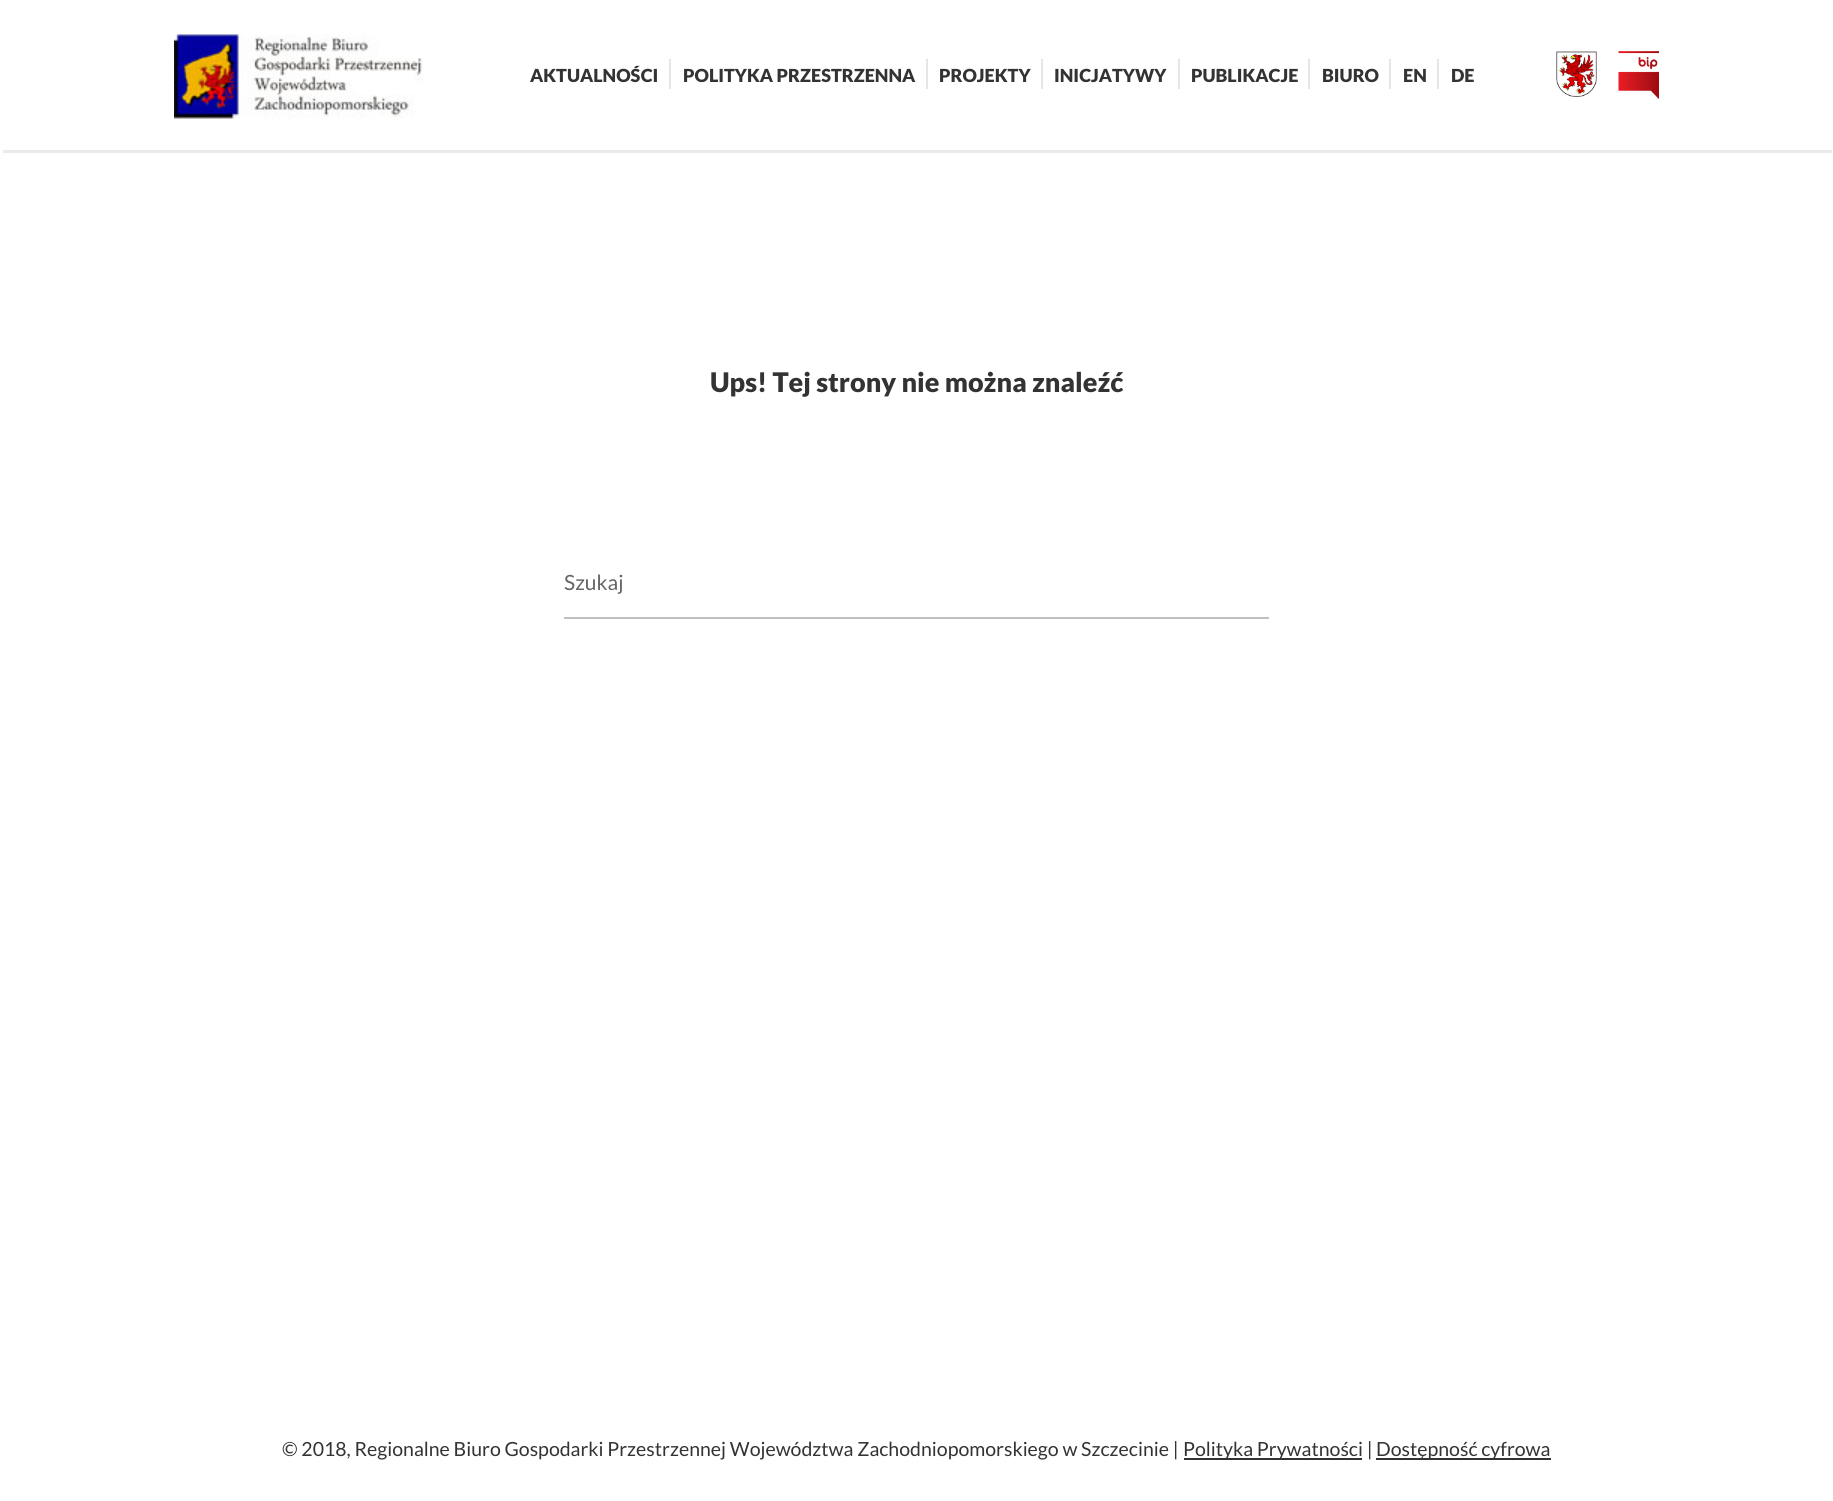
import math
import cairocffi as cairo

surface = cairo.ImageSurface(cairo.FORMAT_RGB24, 1833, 1501)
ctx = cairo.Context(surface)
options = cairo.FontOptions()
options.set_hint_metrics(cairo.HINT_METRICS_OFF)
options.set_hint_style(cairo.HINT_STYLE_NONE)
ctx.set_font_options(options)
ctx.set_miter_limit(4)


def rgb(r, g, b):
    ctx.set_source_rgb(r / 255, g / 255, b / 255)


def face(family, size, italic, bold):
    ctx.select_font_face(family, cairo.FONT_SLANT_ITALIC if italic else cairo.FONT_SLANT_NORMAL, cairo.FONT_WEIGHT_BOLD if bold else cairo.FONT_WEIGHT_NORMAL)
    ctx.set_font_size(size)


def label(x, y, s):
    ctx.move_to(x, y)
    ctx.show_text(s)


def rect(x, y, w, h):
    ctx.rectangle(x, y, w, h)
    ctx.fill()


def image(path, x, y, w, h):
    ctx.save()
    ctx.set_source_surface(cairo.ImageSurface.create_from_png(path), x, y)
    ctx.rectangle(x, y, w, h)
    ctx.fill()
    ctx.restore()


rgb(255, 255, 255)
ctx.paint()
rgb(235, 235, 235)
rect(3, 150, 1829, 3)
image('image0.png', 174, 34, 249, 85)
face('Lato Black', 18, 0, 0)
rgb(51, 51, 51)
label(530, 82, 'AKTUALNOŚCI')
rgb(230, 230, 230)
rect(669, 59, 2, 30)
rgb(51, 51, 51)
label(683, 82, 'POLITYKA PRZESTRZENNA')
rgb(230, 230, 230)
rect(926, 59, 2, 30)
rgb(51, 51, 51)
label(939, 82, 'PROJEKTY')
rgb(230, 230, 230)
rect(1041, 59, 2, 30)
rgb(51, 51, 51)
label(1054, 82, 'INICJATYWY')
rgb(230, 230, 230)
rect(1178, 59, 2, 30)
rgb(51, 51, 51)
label(1191, 82, 'PUBLIKACJE')
rgb(230, 230, 230)
rect(1308, 59, 2, 30)
rgb(51, 51, 51)
label(1322, 82, 'BIURO')
rgb(230, 230, 230)
rect(1389, 59, 2, 30)
rgb(51, 51, 51)
label(1403, 82, 'EN')
rgb(230, 230, 230)
rect(1437, 59, 2, 30)
rgb(51, 51, 51)
label(1451, 82, 'DE')
image('image1.png', 1556, 51, 41, 46)
image('image2.png', 1618, 51, 41, 48)
face('Lato Black', 27, 0, 0)
label(710, 392, 'Ups! Tej strony nie można znaleźć')
rgb(191, 191, 191)
rect(564, 617, 705, 2)
face('Lato', 21, 0, 0)
rgb(102, 102, 102)
label(564, 590, 'Szukaj')
face('Lato', 19.5, 0, 0)
rgb(51, 51, 51)
label(282, 1456, '© 2018, Regionalne Biuro Gospodarki Przestrzennej Województwa Zachodniopomorskiego w Szczecinie |')
rect(1184, 1458, 178, 2)
label(1183, 1456, 'Polityka Prywatności |')
rect(1376, 1458, 175, 2)
label(1376, 1456, 'Dostępność cyfrowa')
surface.write_to_png('render.png')
